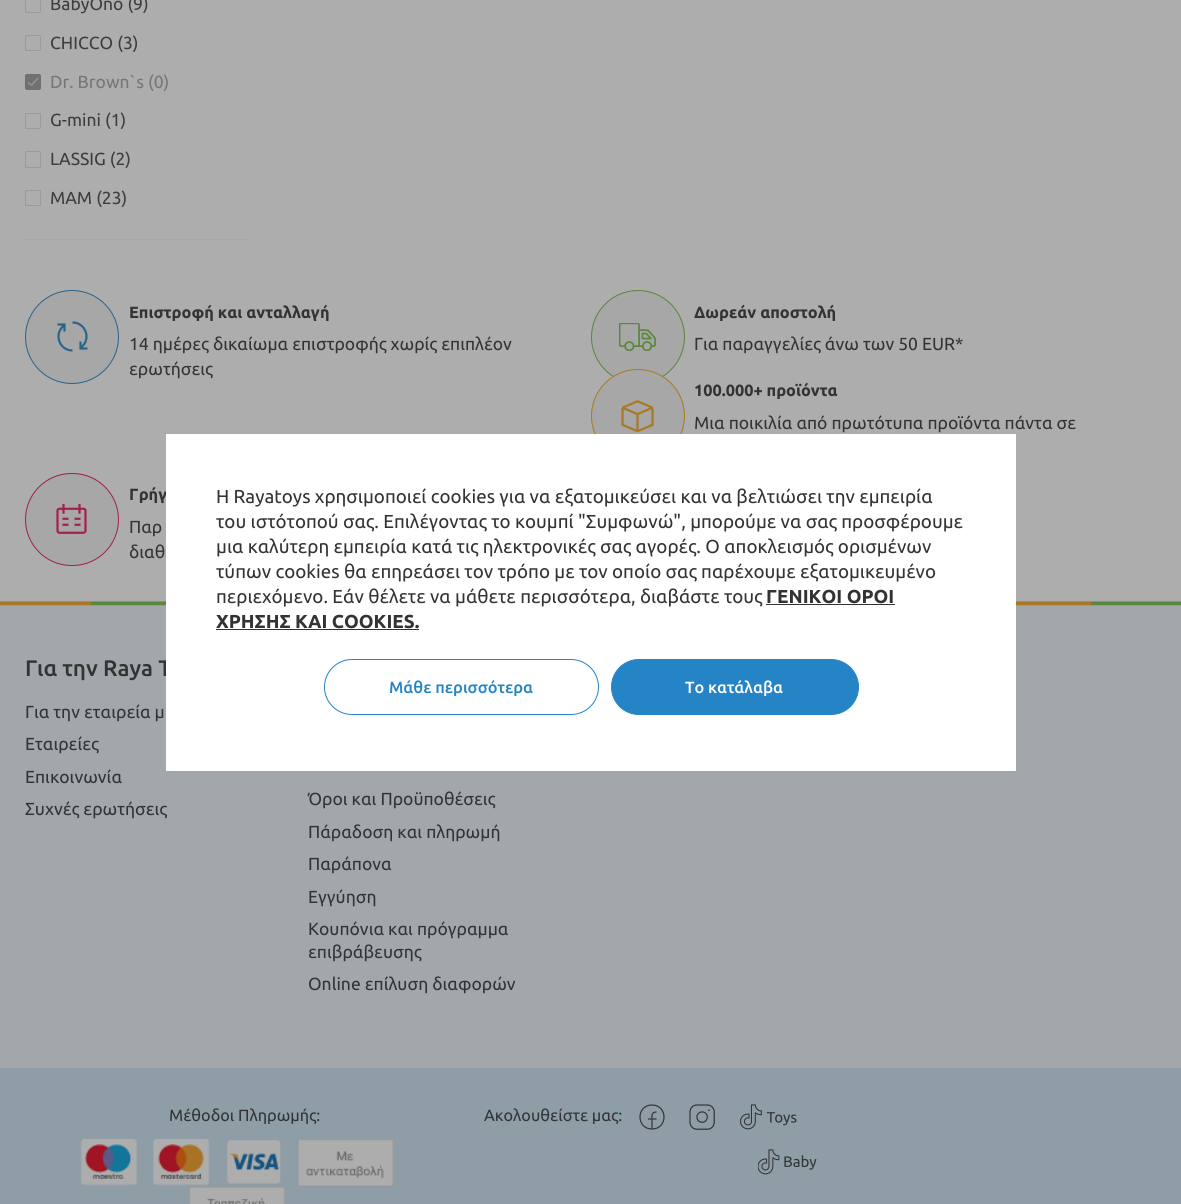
import math
import cairocffi as cairo

surface = cairo.ImageSurface(cairo.FORMAT_RGB24, 1181, 1204)
ctx = cairo.Context(surface)
options = cairo.FontOptions()
options.set_hint_metrics(cairo.HINT_METRICS_OFF)
options.set_hint_style(cairo.HINT_STYLE_NONE)
ctx.set_font_options(options)
ctx.set_miter_limit(4)


def rgb(r, g, b):
    ctx.set_source_rgb(r / 255, g / 255, b / 255)


def face(family, size, italic, bold):
    ctx.select_font_face(family, cairo.FONT_SLANT_ITALIC if italic else cairo.FONT_SLANT_NORMAL, cairo.FONT_WEIGHT_BOLD if bold else cairo.FONT_WEIGHT_NORMAL)
    ctx.set_font_size(size)


def label(x, y, s):
    ctx.move_to(x, y)
    ctx.show_text(s)


def rect(x, y, w, h):
    ctx.rectangle(x, y, w, h)
    ctx.fill()


def rrect(x, y, w, h, r):
    ctx.new_sub_path()
    for i, (u, v) in enumerate([(x + w - r, y + h - r), (x + r, y + h - r), (x + r, y + r), (x + w - r, y + r)]):
        ctx.arc(u, v, r, i * math.pi / 2, (i + 1) * math.pi / 2)
    ctx.close_path()


def image(path, x, y, w, h):
    ctx.save()
    ctx.set_source_surface(cairo.ImageSurface.create_from_png(path), x, y)
    ctx.rectangle(x, y, w, h)
    ctx.fill()
    ctx.restore()


rgb(173, 173, 173)
ctx.paint()
rgb(166, 166, 166)
rect(25, 239, 224, 1)
rrect(25.5, -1.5, 15, 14, 0.5)
rgb(154, 154, 154)
ctx.set_line_width(1)
ctx.stroke()
rgb(173, 173, 173)
rrect(25.5, -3.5, 15, 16, 2)
ctx.fill_preserve()
rgb(154, 154, 154)
ctx.stroke()
face('Ubuntu', 17.5, 0, 0)
rgb(61, 61, 61)
label(50, 10, 'BabyOno (9)')
rrect(25.5, 35.5, 15, 15, 0.5)
rgb(154, 154, 154)
ctx.stroke()
rgb(173, 173, 173)
rrect(25.5, 35.5, 15, 15, 2)
ctx.fill_preserve()
rgb(154, 154, 154)
ctx.stroke()
rgb(61, 61, 61)
label(50, 49, 'CHICCO (3)')
rrect(25.5, 74.5, 15, 15, 0.5)
rgb(164, 164, 164)
ctx.stroke()
rrect(25.5, 74.5, 15, 15, 2)
rgb(112, 112, 112)
ctx.stroke()
rrect(25, 74, 16, 16, 2.5)
ctx.fill()
image('image0.png', 27, 77, 12, 10)
rgb(118, 118, 118)
label(50, 88, 'Dr. Brown`s (0)')
rrect(25.5, 113.5, 15, 15, 0.5)
rgb(154, 154, 154)
ctx.stroke()
rgb(173, 173, 173)
rrect(25.5, 113.5, 15, 15, 2)
ctx.fill_preserve()
rgb(154, 154, 154)
ctx.stroke()
rgb(61, 61, 61)
label(50, 126, 'G-mini (1)')
rrect(25.5, 151.5, 15, 16, 0.5)
rgb(154, 154, 154)
ctx.stroke()
rgb(173, 173, 173)
rrect(25.5, 151.5, 15, 16, 2)
ctx.fill_preserve()
rgb(154, 154, 154)
ctx.stroke()
rgb(61, 61, 61)
label(50, 165, 'LASSIG (2)')
rrect(25.5, 190.5, 15, 15, 0.5)
rgb(154, 154, 154)
ctx.stroke()
rgb(173, 173, 173)
rrect(25.5, 190.5, 15, 15, 2)
ctx.fill_preserve()
rgb(154, 154, 154)
ctx.stroke()
rgb(61, 61, 61)
label(50, 204, 'MAM (23)')
rgb(167, 167, 167)
ctx.new_path()
ctx.arc(72, 337, 47, 0, 2 * math.pi)
ctx.fill()
ctx.new_path()
ctx.move_to(72.5, 350.5)
ctx.curve_to(59, 350.5, 53.5, 333.5, 64, 325.5)
ctx.move_to(72.5, 322.5)
ctx.curve_to(86, 322.5, 91.5, 339.5, 81, 347.5)
ctx.move_to(80.5, 341.5)
ctx.line_to(80.5, 348.5)
ctx.line_to(87.5, 348.5)
ctx.move_to(57.5, 324.5)
ctx.line_to(64.5, 324.5)
ctx.line_to(64.5, 331.5)
rgb(43, 100, 139)
ctx.set_line_width(2.2)
ctx.stroke()
ctx.arc(72, 337, 46.5, 0, 2 * math.pi)
ctx.set_line_width(1)
ctx.stroke()
face('Ubuntu', 16.25, 0, 1)
rgb(51, 51, 51)
label(129, 318, 'Επιστροφή και ανταλλαγή')
face('Ubuntu', 17.5, 0, 0)
label(129, 350, '14 ημέρες δικαίωμα επιστροφής χωρίς επιπλέον')
label(129, 375, 'ερωτήσεις')
rgb(167, 167, 167)
ctx.new_path()
ctx.arc(638, 337, 47, 0, 2 * math.pi)
ctx.fill()
image('image1.png', 619, 323, 37, 28)
ctx.arc(638, 337, 46.5, 0, 2 * math.pi)
rgb(89, 135, 61)
ctx.stroke()
face('Ubuntu', 16.25, 0, 1)
rgb(51, 51, 51)
label(694, 318, 'Δωρεάν αποστολή')
face('Ubuntu', 17.5, 0, 0)
label(694, 350, 'Για παραγγελίες άνω των 50 EUR*')
rgb(167, 167, 167)
ctx.new_path()
ctx.arc(638, 416, 47, 0, 2 * math.pi)
ctx.fill()
image('image2.png', 621, 400, 33, 33)
ctx.arc(638, 416, 46.5, 0, 2 * math.pi)
rgb(170, 120, 36)
ctx.stroke()
face('Ubuntu', 16.25, 0, 1)
rgb(51, 51, 51)
label(694, 396, '100.000+ προϊόντα')
face('Ubuntu', 17.5, 0, 0)
label(694, 429, 'Μια ποικιλία από πρωτότυπα προϊόντα πάντα σε')
rgb(167, 167, 167)
rrect(25, 473, 94, 93, 46.5)
ctx.fill()
image('image3.png', 56, 504, 31, 30)
rrect(25.5, 473.5, 93, 92, 46)
rgb(163, 31, 77)
ctx.stroke()
face('Ubuntu', 16.25, 0, 1)
rgb(51, 51, 51)
label(129, 500, 'Γρήγ')
face('Ubuntu', 17.5, 0, 0)
label(129, 533, 'Παρ')
label(129, 558, 'διαθ')
rgb(161, 167, 170)
rect(0, 601, 1181, 467)
image('image4.png', 0, 601, 1181, 5)
face('Ubuntu Medium', 22.5, 0, 0)
rgb(51, 51, 51)
label(25, 676, 'Για την Raya T')
face('Ubuntu', 17.5, 0, 0)
label(25, 718, 'Για την εταιρεία μ')
label(25, 750, 'Εταιρείες')
label(25, 783, 'Επικοινωνία')
label(25, 815, 'Συχνές ερωτήσεις')
label(308, 805, 'Όροι και Προϋποθέσεις')
label(308, 838, 'Πάραδοση και πληρωμή')
label(308, 870, 'Παράπονα')
label(308, 903, 'Εγγύηση')
label(308, 935, 'Κουπόνια και πρόγραμμα')
label(308, 958, 'επιβράβευσης')
label(308, 990, 'Online επίλυση διαφορών')
rgb(143, 157, 166)
rect(0, 1068, 1181, 136)
face('Ubuntu', 16.25, 0, 0)
rgb(51, 51, 51)
label(169, 1121, 'Μέθοδοι Πληρωμής:')
image('image5.png', 80, 1139, 130, 47)
image('image6.png', 226, 1140, 55, 44)
image('image7.png', 297, 1139, 97, 48)
image('image8.png', 188, 1186, 97, 18)
label(484, 1121, 'Ακολουθείστε μας:')
ctx.new_path()
ctx.move_to(652, 1129)
ctx.curve_to(636, 1129, 636, 1105, 652, 1105)
ctx.curve_to(668, 1105, 668, 1129, 652, 1129)
ctx.close_path()
ctx.move_to(652, 1129)
ctx.line_to(652, 1120)
ctx.curve_to(652, 1116, 651, 1112, 656.5, 1112)
ctx.move_to(648, 1119)
ctx.line_to(656.5, 1119)
ctx.set_line_width(1.2)
ctx.stroke()
image('image9.png', 689, 1104, 26, 26)
image('image10.png', 740, 1104, 57, 26)
image('image11.png', 758, 1149, 59, 26)
rgb(255, 255, 255)
rect(166, 434, 850, 337)
face('Ubuntu', 18.75, 0, 0)
rgb(51, 51, 51)
label(216, 503, 'Η Rayatoys χρησιμοποιεί cookies για να εξατομικεύσει και να βελτιώσει την εμπειρία')
label(216, 528, 'του ιστότοπού σας. Επιλέγοντας το κουμπί "Συμφωνώ", μπορούμε να σας προσφέρουμε')
label(216, 553, 'μια καλύτερη εμπειρία κατά τις ηλεκτρονικές σας αγορές. Ο αποκλεισμός ορισμένων')
label(216, 578, 'τύπων cookies θα επηρεάσει τον τρόπο με τον οποίο σας παρέχουμε εξατομικευμένο')
label(216, 603, 'περιεχόμενο. Εάν θέλετε να μάθετε περισσότερα, διαβάστε τους')
face('Ubuntu', 18.75, 0, 1)
label(766, 603, 'ΓΕΝΙΚΟΙ ΟΡΟΙ')
rect(766, 604, 129, 1)
label(216, 628, 'ΧΡΗΣΗΣ ΚΑΙ COOKIES.')
rect(216, 629, 203, 1)
rrect(324.5, 659.5, 274, 55, 27.5)
rgb(37, 132, 197)
ctx.set_line_width(1)
ctx.stroke()
face('Ubuntu Medium', 16.25, 0, 0)
label(389, 693, 'Μάθε περισσότερα')
rrect(611.5, 659.5, 247, 55, 27.5)
ctx.fill_preserve()
ctx.stroke()
rgb(255, 255, 255)
label(685, 693, 'Το κατάλαβα')
surface.write_to_png('render.png')
